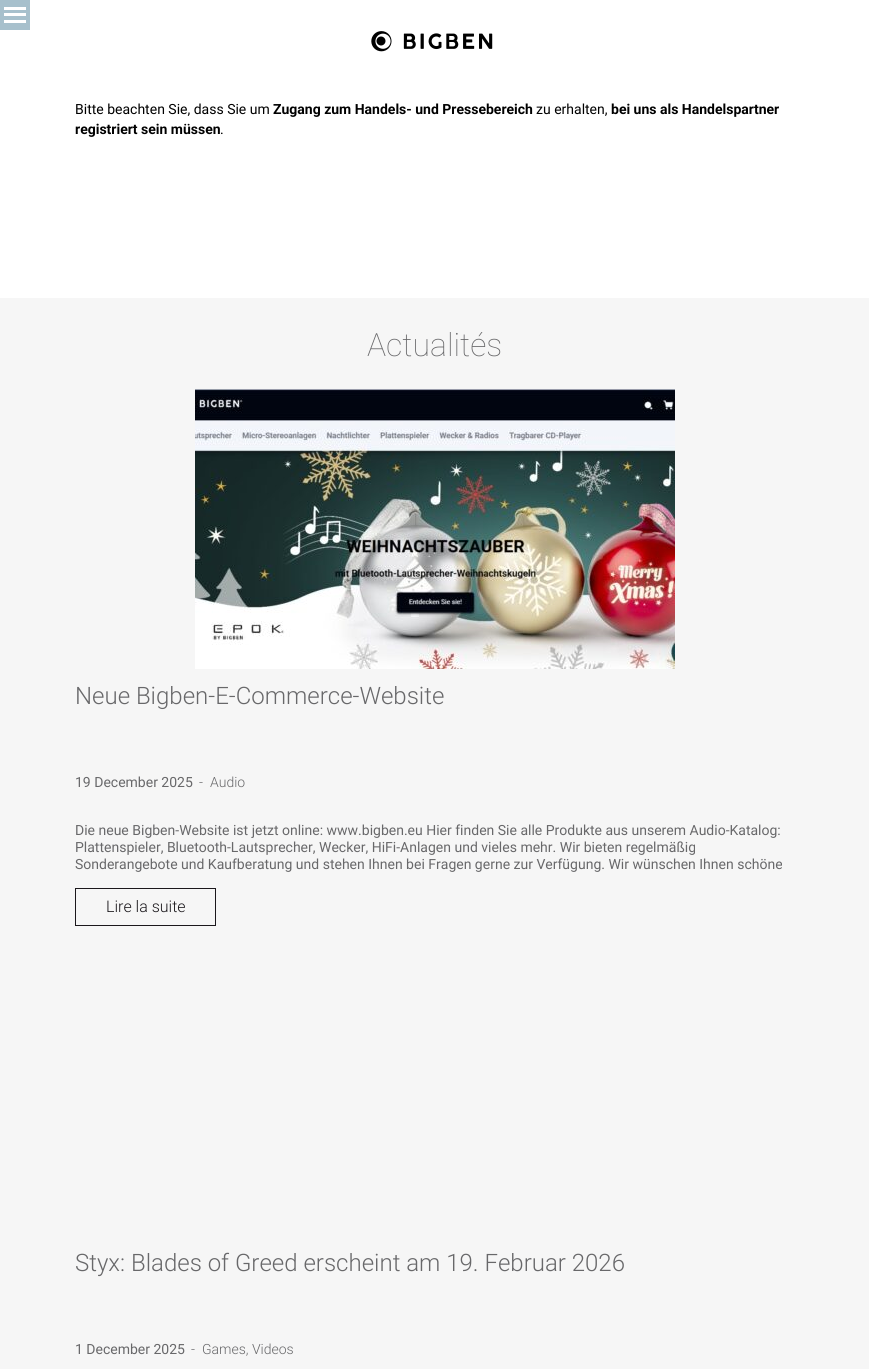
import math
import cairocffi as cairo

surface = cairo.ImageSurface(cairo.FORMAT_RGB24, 869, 1369)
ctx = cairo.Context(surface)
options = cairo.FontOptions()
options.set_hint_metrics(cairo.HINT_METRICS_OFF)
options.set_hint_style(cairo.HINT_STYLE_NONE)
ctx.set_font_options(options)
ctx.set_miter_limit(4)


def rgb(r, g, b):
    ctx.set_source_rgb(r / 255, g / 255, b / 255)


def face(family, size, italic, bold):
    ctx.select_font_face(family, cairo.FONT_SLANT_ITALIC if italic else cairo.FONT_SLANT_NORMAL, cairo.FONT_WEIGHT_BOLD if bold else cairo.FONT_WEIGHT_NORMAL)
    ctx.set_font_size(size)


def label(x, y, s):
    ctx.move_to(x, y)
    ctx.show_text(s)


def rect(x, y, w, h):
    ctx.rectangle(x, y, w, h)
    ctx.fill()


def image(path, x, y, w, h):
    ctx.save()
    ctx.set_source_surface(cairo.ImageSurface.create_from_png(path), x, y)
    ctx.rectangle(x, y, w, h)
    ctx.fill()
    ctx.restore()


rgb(255, 255, 255)
ctx.paint()
rgb(167, 192, 204)
rect(0, 0, 30, 30)
rgb(255, 255, 255)
rect(4, 7, 22, 3)
rect(4, 13, 22, 3)
rect(4, 20, 22, 3)
image('image0.png', 371, 31, 122, 21)
face('Roboto', 14, 0, 0)
rgb(0, 0, 0)
label(75, 114, 'Bitte beachten Sie, dass Sie um')
face('Roboto', 14, 0, 1)
label(273, 114, 'Zugang zum Handels- und Pressebereich')
face('Roboto', 14, 0, 0)
label(536, 114, 'zu erhalten,')
face('Roboto', 14, 0, 1)
label(611, 114, 'bei uns als Handelspartner')
label(75, 134, 'registriert sein müssen')
face('Roboto', 14, 0, 0)
label(220, 134, '.')
rgb(246, 246, 246)
rect(0, 298, 869, 1071)
face('Roboto Thin', 32, 0, 0)
rgb(104, 104, 106)
label(367, 356, 'Actualités')
image('image1.png', 195, 389, 480, 280)
face('Roboto Light', 24, 0, 0)
label(75, 704, 'Neue Bigben-E-Commerce-Website')
face('Roboto', 14, 0, 0)
label(75, 787, '19 December 2025')
face('Roboto Light', 14, 0, 0)
label(199, 787, '-')
label(210, 787, 'Audio')
face('Roboto', 14, 0, 0)
label(75, 835, 'Die neue Bigben-Website ist jetzt online: www.bigben.eu Hier finden Sie alle Produkte aus unserem Audio-Katalog:')
label(75, 852, 'Plattenspieler, Bluetooth-Lautsprecher, Wecker, HiFi-Anlagen und vieles mehr. Wir bieten regelmäßig')
label(75, 869, 'Sonderangebote und Kaufberatung und stehen Ihnen bei Fragen gerne zur Verfügung. Wir wünschen Ihnen schöne')
ctx.rectangle(75.5, 888.5, 140, 37)
rgb(27, 24, 28)
ctx.set_line_width(1)
ctx.stroke()
face('Roboto Light', 16, 0, 0)
label(106, 912, 'Lire la suite')
face('Roboto Light', 24, 0, 0)
rgb(104, 104, 106)
label(75, 1271, 'Styx: Blades of Greed erscheint am 19. Februar 2026')
face('Roboto', 14, 0, 0)
label(75, 1354, '1 December 2025')
face('Roboto Light', 14, 0, 0)
label(191, 1354, '-')
label(202, 1354, 'Games, Videos')
surface.write_to_png('render.png')
